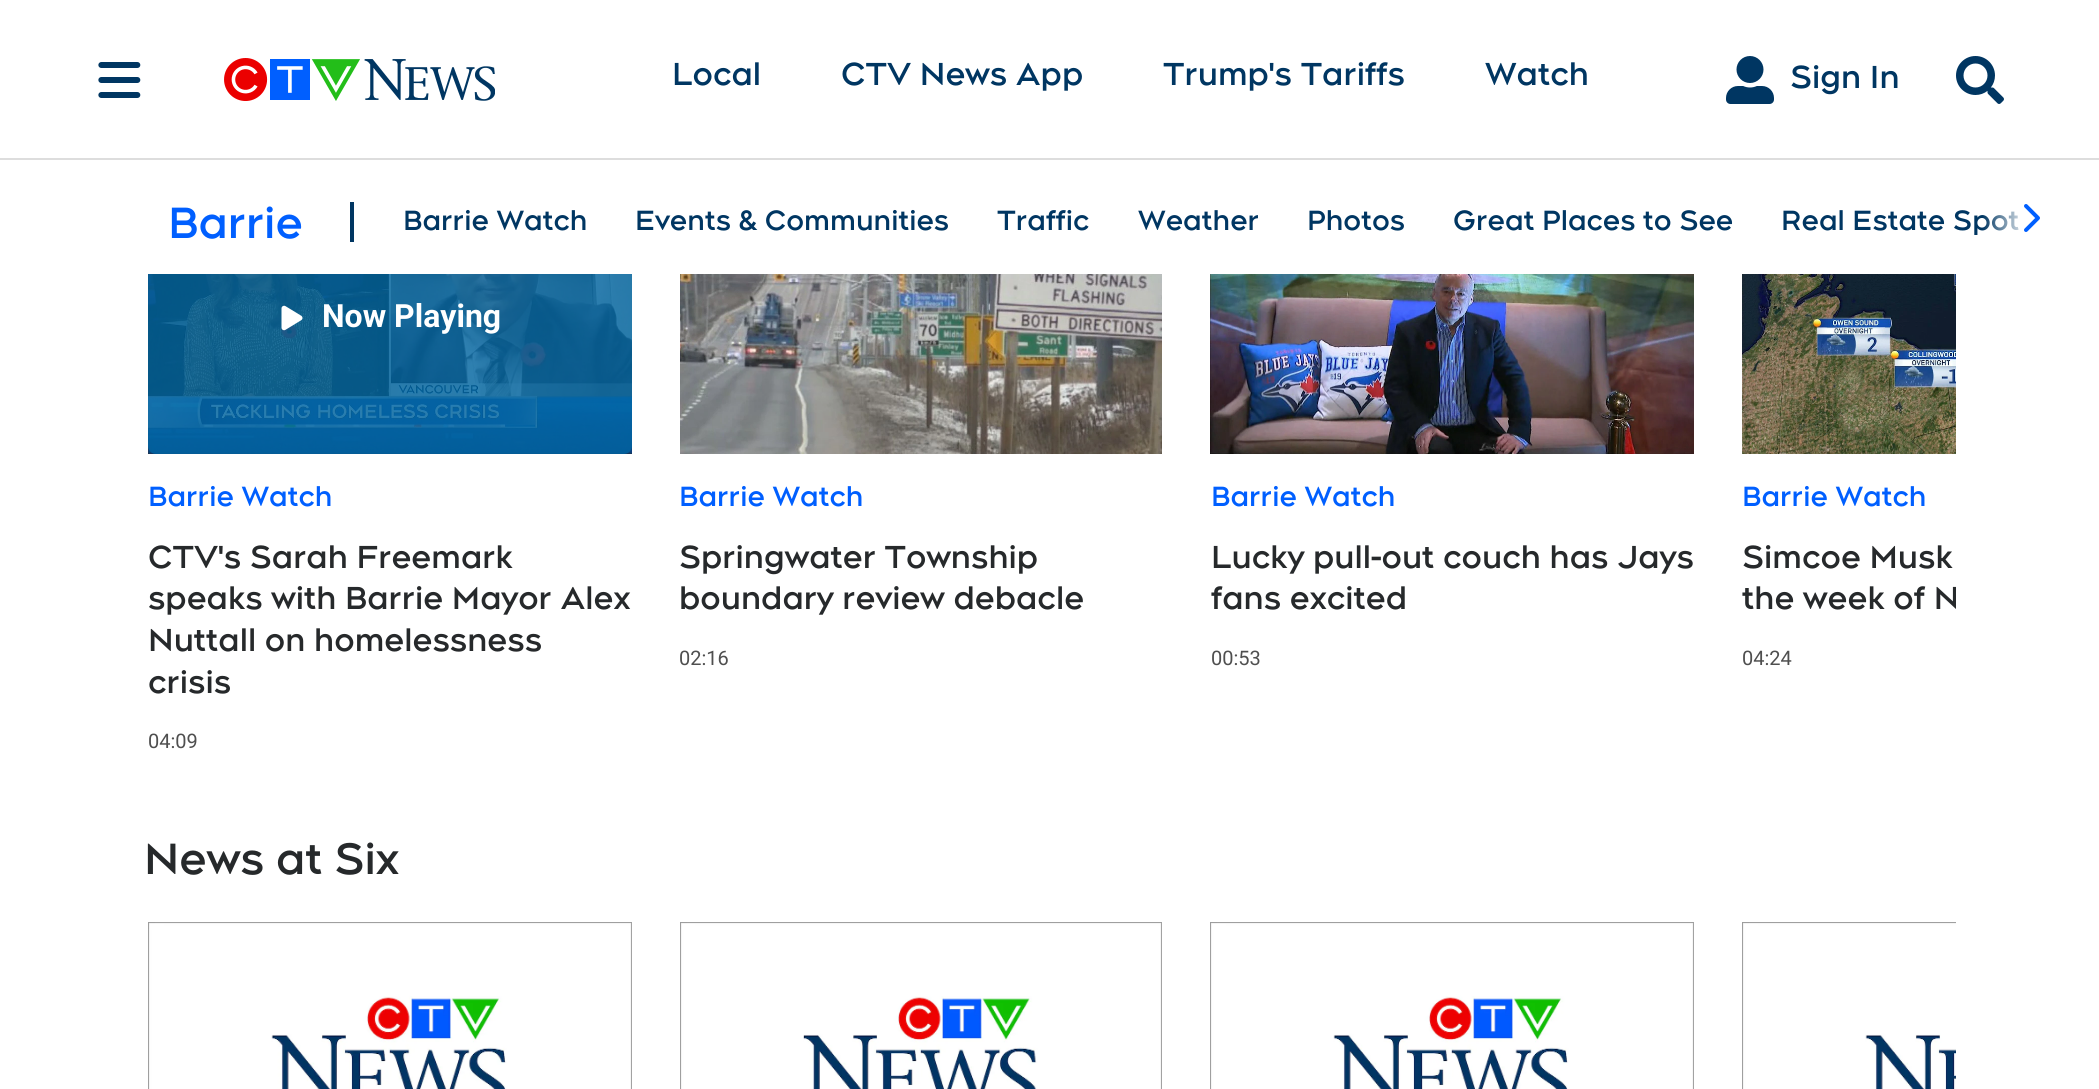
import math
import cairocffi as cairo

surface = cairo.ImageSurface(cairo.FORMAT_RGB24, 2099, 1089)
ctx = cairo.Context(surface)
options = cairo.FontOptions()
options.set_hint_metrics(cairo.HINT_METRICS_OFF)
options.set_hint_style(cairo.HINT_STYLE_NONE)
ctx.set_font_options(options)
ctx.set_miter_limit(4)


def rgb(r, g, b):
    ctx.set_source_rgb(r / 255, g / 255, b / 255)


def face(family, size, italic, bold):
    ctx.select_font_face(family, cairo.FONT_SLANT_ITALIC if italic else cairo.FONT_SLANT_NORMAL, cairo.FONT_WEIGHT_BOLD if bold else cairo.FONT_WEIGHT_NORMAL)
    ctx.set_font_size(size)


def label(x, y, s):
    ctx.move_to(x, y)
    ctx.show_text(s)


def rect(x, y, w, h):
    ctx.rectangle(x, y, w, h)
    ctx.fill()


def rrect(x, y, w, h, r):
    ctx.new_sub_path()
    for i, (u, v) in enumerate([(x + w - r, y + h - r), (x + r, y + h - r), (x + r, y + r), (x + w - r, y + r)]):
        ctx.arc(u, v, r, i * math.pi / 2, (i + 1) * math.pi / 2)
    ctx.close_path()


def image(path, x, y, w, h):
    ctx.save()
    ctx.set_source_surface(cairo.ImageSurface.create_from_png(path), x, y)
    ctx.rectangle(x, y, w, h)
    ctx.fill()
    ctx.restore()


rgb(255, 255, 255)
ctx.paint()
rgb(221, 221, 221)
rect(0, 158, 2099, 2)
image('image0.png', 98, 62, 43, 36)
image('image1.png', 224, 58, 271, 43)
face('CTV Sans', 32, 0, 1)
rgb(0, 54, 98)
label(672, 85, 'Local')
label(841, 85, 'CTV News App')
label(1163, 85, 'Trump\'s Tariffs')
label(1485, 85, 'Watch')
image('image2.png', 1726, 56, 48, 48)
label(1790, 88, 'Sign In')
image('image3.png', 1956, 56, 48, 48)
face('CTV Sans', 44, 0, 1)
rgb(0, 95, 255)
label(168, 238, 'Barrie')
rgb(0, 54, 98)
rect(350, 202, 4, 40)
face('CTV Sans', 28, 0, 1)
label(403, 230, 'Barrie Watch')
label(635, 230, 'Events & Communities')
label(997, 230, 'Traffic')
label(1138, 230, 'Weather')
label(1307, 230, 'Photos')
label(1453, 230, 'Great Places to See')
label(1781, 230, 'Real Estate Spot')
ctx.save()
ctx.rectangle(350, 192, 1726, 50)
ctx.clip()
gradient = cairo.LinearGradient(2078, 217, 1982, 217)
gradient.add_color_stop_rgba(0.5, 1, 1, 1, 1)
gradient.add_color_stop_rgba(1, 1, 1, 1, 0)
ctx.set_source(gradient)
rrect(1982, 192, 96, 50, 8)
ctx.fill()
ctx.restore()
image('image4.png', 2024, 204, 16, 28)
image('image5.png', 148, 274, 484, 180)
image('image6.png', 281, 305, 22, 26)
face('Roboto', 32, 0, 1)
rgb(255, 255, 255)
label(322, 327, 'Now Playing')
face('CTV Sans', 28, 0, 1)
rgb(0, 95, 255)
label(148, 506, 'Barrie Watch')
face('CTV Sans', 32, 0, 1)
rgb(38, 41, 43)
label(148, 568, 'CTV\'s Sarah Freemark')
label(148, 609, 'speaks with Barrie Mayor Alex')
label(148, 651, 'Nuttall on homelessness')
label(148, 693, 'crisis')
face('Roboto', 20, 0, 0)
rgb(79, 79, 79)
label(148, 748, '04:09')
image('image7.png', 680, 274, 482, 180)
face('CTV Sans', 28, 0, 1)
rgb(0, 95, 255)
label(679, 506, 'Barrie Watch')
face('CTV Sans', 32, 0, 1)
rgb(38, 41, 43)
label(679, 568, 'Springwater Township')
label(679, 609, 'boundary review debacle')
face('Roboto', 20, 0, 0)
rgb(79, 79, 79)
label(679, 665, '02:16')
image('image8.png', 1210, 274, 484, 180)
face('CTV Sans', 28, 0, 1)
rgb(0, 95, 255)
label(1211, 506, 'Barrie Watch')
face('CTV Sans', 32, 0, 1)
rgb(38, 41, 43)
label(1211, 568, 'Lucky pull-out couch has Jays')
label(1211, 609, 'fans excited')
face('Roboto', 20, 0, 0)
rgb(79, 79, 79)
label(1211, 665, '00:53')
image('image9.png', 1742, 274, 214, 180)
face('CTV Sans', 28, 0, 1)
rgb(0, 95, 255)
label(1742, 506, 'Barrie Watch')
face('CTV Sans', 32, 0, 1)
rgb(38, 41, 43)
label(1742, 568, 'Simcoe Musk')
ctx.save()
ctx.rectangle(1742, 538, 214, 84)
ctx.clip()
label(1742, 609, 'the week of N')
ctx.restore()
face('Roboto', 20, 0, 0)
rgb(79, 79, 79)
label(1742, 665, '04:24')
face('CTV Sans', 44, 0, 1)
rgb(38, 41, 43)
label(144, 874, 'News at Six')
image('image10.png', 148, 922, 484, 167)
image('image11.png', 680, 922, 482, 167)
image('image10.png', 1210, 922, 484, 167)
image('image12.png', 1742, 922, 214, 167)
surface.write_to_png('render.png')
